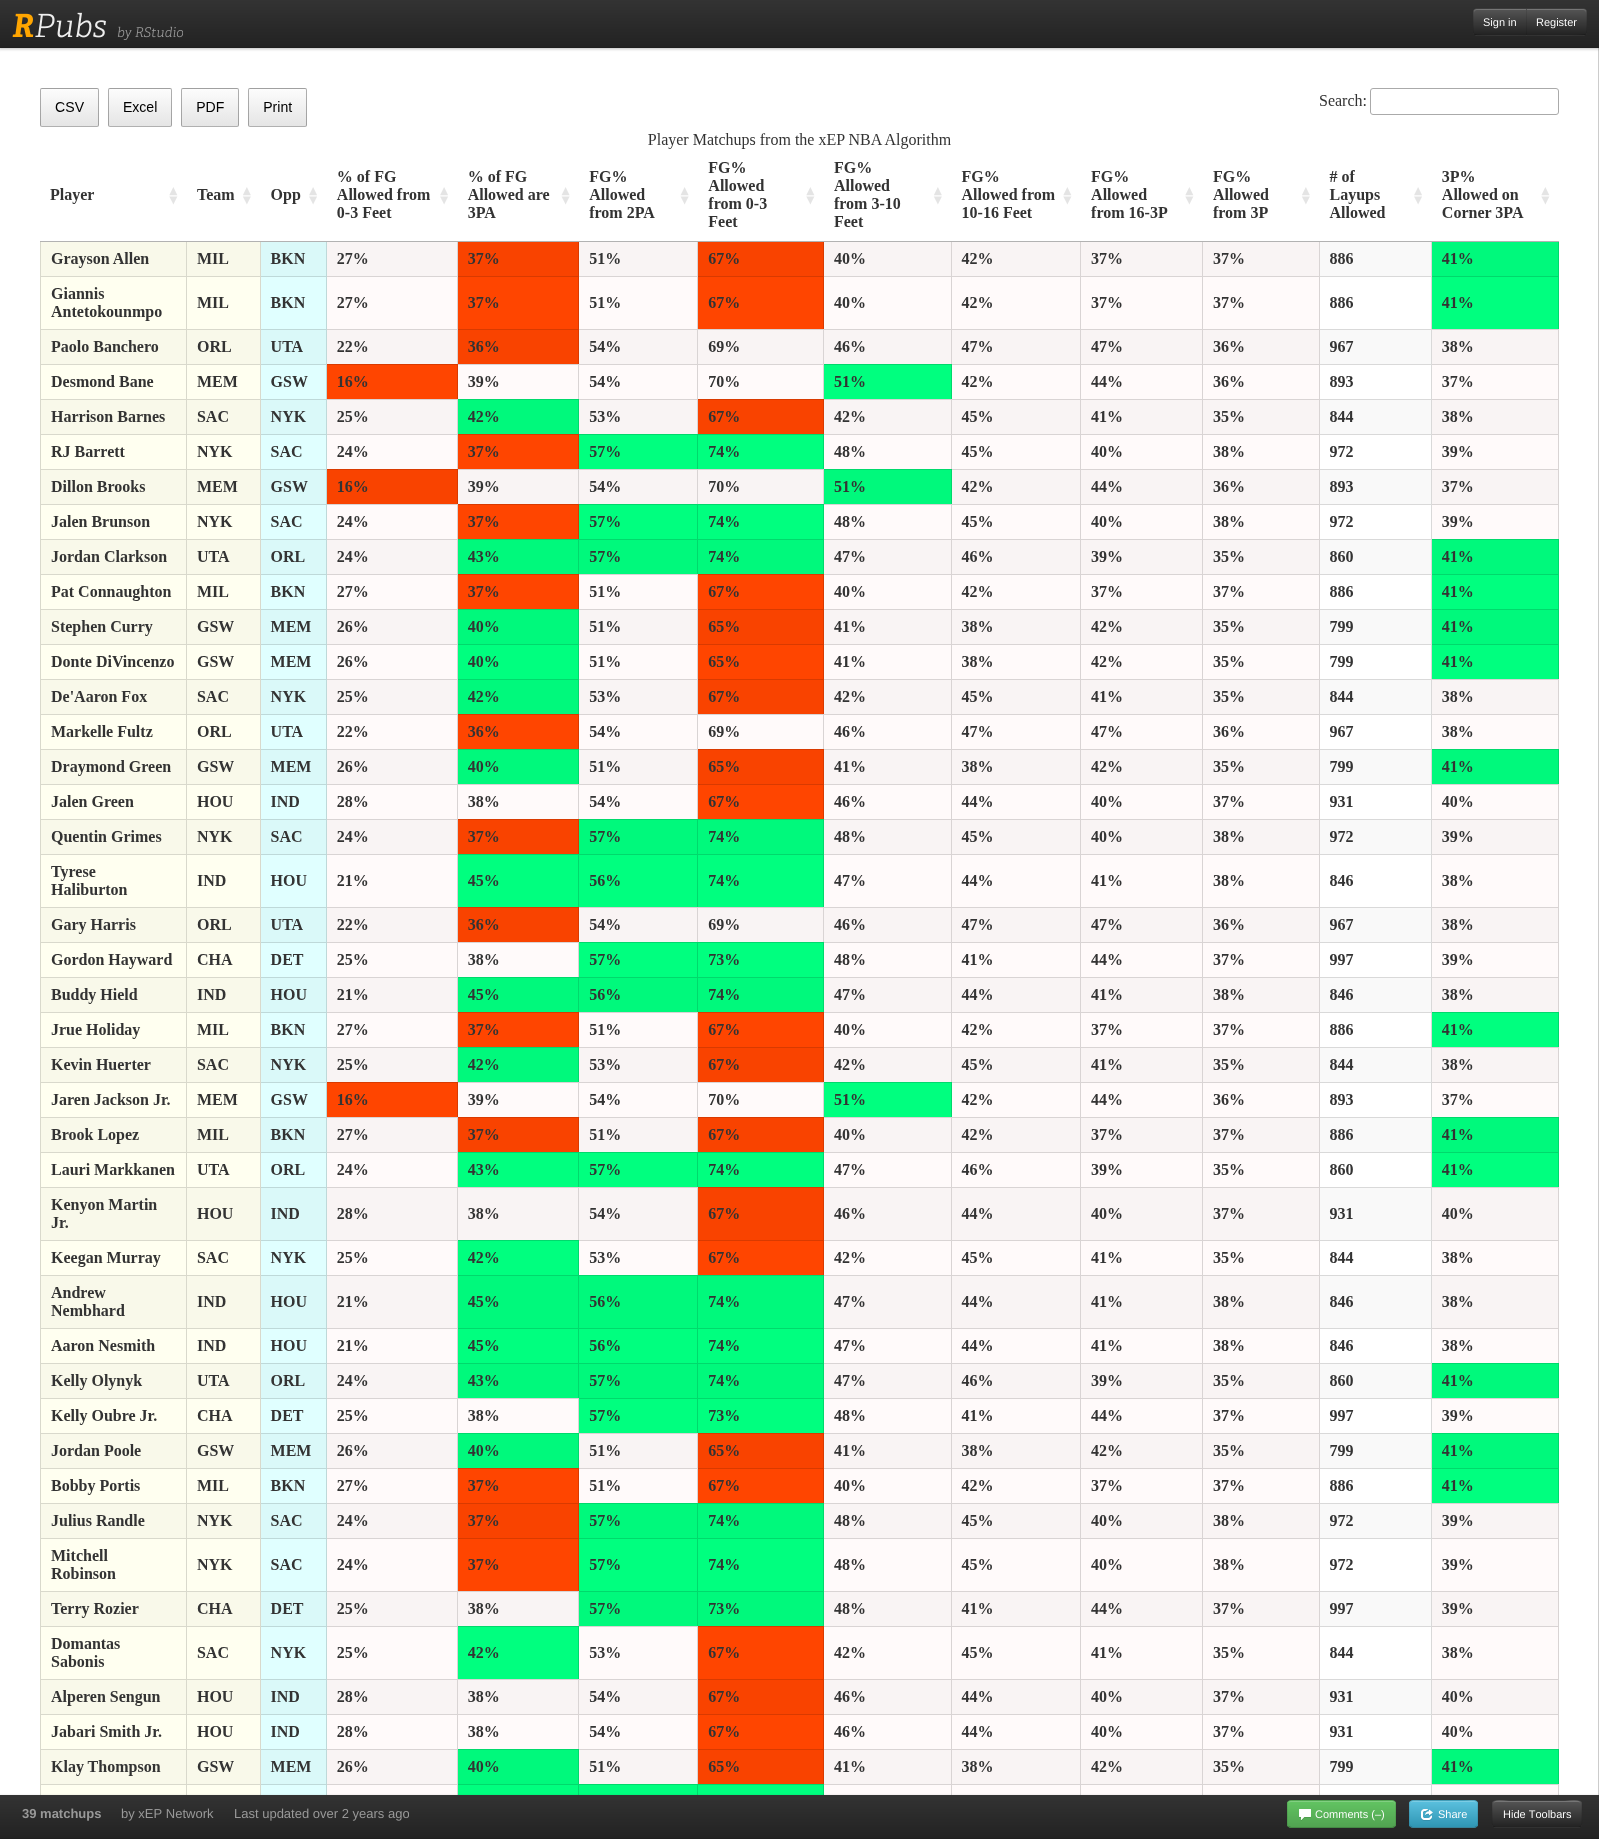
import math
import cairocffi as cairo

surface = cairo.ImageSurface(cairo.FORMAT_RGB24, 1599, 1839)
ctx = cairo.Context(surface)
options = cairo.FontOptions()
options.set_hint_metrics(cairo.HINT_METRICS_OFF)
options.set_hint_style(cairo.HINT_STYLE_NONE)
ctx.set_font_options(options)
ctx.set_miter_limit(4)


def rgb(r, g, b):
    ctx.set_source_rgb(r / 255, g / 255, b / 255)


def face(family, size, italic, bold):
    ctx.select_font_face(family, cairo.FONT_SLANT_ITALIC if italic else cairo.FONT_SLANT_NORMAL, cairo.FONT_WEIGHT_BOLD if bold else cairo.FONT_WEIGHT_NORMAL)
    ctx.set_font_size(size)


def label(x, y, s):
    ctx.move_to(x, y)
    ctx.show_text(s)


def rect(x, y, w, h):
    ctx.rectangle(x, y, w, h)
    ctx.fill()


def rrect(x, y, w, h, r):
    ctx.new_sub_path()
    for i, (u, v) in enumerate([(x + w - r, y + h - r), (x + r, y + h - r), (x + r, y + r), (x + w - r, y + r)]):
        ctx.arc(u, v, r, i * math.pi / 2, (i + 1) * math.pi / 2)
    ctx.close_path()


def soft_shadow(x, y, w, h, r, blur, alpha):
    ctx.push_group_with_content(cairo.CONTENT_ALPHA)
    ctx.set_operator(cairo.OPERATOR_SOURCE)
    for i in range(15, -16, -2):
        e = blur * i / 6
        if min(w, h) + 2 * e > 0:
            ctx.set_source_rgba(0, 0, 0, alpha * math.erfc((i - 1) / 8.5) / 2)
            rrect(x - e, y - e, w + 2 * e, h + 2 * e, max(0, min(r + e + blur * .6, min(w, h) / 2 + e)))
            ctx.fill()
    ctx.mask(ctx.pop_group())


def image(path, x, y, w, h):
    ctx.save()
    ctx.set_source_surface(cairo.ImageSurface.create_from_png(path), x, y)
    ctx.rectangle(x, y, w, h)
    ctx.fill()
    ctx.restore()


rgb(255, 255, 255)
ctx.paint()
image('image0.png', 0, 48, 1598, 1747)
rgb(204, 204, 204)
rect(1598, 48, 1, 1751)
rgb(0, 0, 0)
soft_shadow(0, 1, 1599, 48, 0, 1.5, 0.25)
gradient = cairo.LinearGradient(800, 0, 800, 48)
gradient.add_color_stop_rgba(0, 0.2, 0.2, 0.2, 1)
gradient.add_color_stop_rgba(1, 0.133, 0.133, 0.133, 1)
ctx.set_source(gradient)
rect(0, 0, 1599, 47)
rgb(31, 31, 31)
rect(0, 47, 1599, 1)
face('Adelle', 32, 1, 1)
rgb(255, 165, 0)
label(12, 37, 'R')
face('Adelle Light', 32, 1, 0)
rgb(238, 238, 238)
label(34, 37, 'Pubs')
face('Adelle Light', 13.5, 1, 0)
rgb(153, 153, 153)
label(117, 37, 'by RStudio')
rgb(65, 65, 65)
ctx.new_path()
ctx.move_to(1477, 8)
ctx.line_to(1527, 8)
ctx.line_to(1527, 36)
ctx.line_to(1477, 36)
ctx.curve_to(1475, 36, 1473, 34, 1473, 32)
ctx.line_to(1473, 12)
ctx.curve_to(1473, 10, 1475, 8, 1477, 8)
ctx.close_path()
ctx.fill()
ctx.save()
ctx.new_path()
ctx.move_to(1477, 8)
ctx.line_to(1527, 8)
ctx.line_to(1527, 36)
ctx.line_to(1477, 36)
ctx.curve_to(1475, 36, 1473, 34, 1473, 32)
ctx.line_to(1473, 12)
ctx.curve_to(1473, 10, 1475, 8, 1477, 8)
ctx.close_path()
ctx.clip()
gradient = cairo.LinearGradient(1500, 9, 1500, 35)
gradient.add_color_stop_rgba(0, 0.333, 0.333, 0.333, 1)
gradient.add_color_stop_rgba(1, 0.133, 0.133, 0.133, 1)
ctx.set_source(gradient)
rect(1473, 9, 53, 26)
ctx.restore()
rgb(118, 118, 118)
ctx.new_path()
ctx.move_to(1477, 10)
ctx.line_to(1526, 10)
ctx.line_to(1526, 9)
ctx.line_to(1477, 9)
ctx.curve_to(1475, 9, 1474, 10, 1474, 12)
ctx.line_to(1474, 13)
ctx.curve_to(1474, 11, 1475, 10, 1477, 10)
ctx.close_path()
ctx.fill()
ctx.set_source_rgba(0, 0, 0, 0.1)
ctx.new_path()
ctx.move_to(1477, 8)
ctx.line_to(1474, 9)
ctx.line_to(1475, 10)
ctx.curve_to(1477, 8, 1520, 9, 1526, 9)
ctx.line_to(1527, 8)
ctx.close_path()
ctx.fill()
ctx.set_source_rgba(0, 0, 0, 0.25)
ctx.new_path()
ctx.move_to(1527, 36)
ctx.line_to(1526, 35)
ctx.curve_to(1520, 35, 1477, 36, 1475, 34)
ctx.line_to(1474, 35)
ctx.line_to(1477, 36)
ctx.close_path()
ctx.fill()
ctx.set_source_rgba(0, 0, 0, 0.1)
ctx.new_path()
ctx.move_to(1473, 12)
ctx.line_to(1473, 32)
ctx.curve_to(1473, 33, 1473.5, 34, 1474, 35)
ctx.line_to(1475, 34)
ctx.curve_to(1474, 34, 1474, 33, 1474, 32)
ctx.line_to(1474, 12)
ctx.curve_to(1474, 11, 1474, 10, 1475, 10)
ctx.line_to(1474, 9)
ctx.curve_to(1473.5, 10, 1473, 11, 1473, 12)
ctx.close_path()
ctx.fill()
face('Liberation Sans', 11, 0, 0)
rgb(255, 255, 255)
label(1483, 26, 'Sign in')
rgb(65, 65, 65)
ctx.new_path()
ctx.move_to(1526, 8)
ctx.line_to(1583, 8)
ctx.curve_to(1585, 8, 1587, 10, 1587, 12)
ctx.line_to(1587, 32)
ctx.curve_to(1587, 34, 1585, 36, 1583, 36)
ctx.line_to(1526, 36)
ctx.close_path()
ctx.fill()
ctx.save()
ctx.new_path()
ctx.move_to(1526, 8)
ctx.line_to(1583, 8)
ctx.curve_to(1585, 8, 1587, 10, 1587, 12)
ctx.line_to(1587, 32)
ctx.curve_to(1587, 34, 1585, 36, 1583, 36)
ctx.line_to(1526, 36)
ctx.close_path()
ctx.clip()
gradient = cairo.LinearGradient(1557, 9, 1557, 35)
gradient.add_color_stop_rgba(0, 0.333, 0.333, 0.333, 1)
gradient.add_color_stop_rgba(1, 0.133, 0.133, 0.133, 1)
ctx.set_source(gradient)
rect(1526, 9, 61, 26)
ctx.restore()
rgb(118, 118, 118)
ctx.new_path()
ctx.move_to(1527, 10)
ctx.line_to(1583, 10)
ctx.curve_to(1585, 10, 1586, 11, 1586, 13)
ctx.line_to(1586, 12)
ctx.curve_to(1586, 10, 1585, 9, 1583, 9)
ctx.line_to(1527, 9)
ctx.close_path()
ctx.fill()
ctx.set_source_rgba(0, 0, 0, 0.1)
ctx.new_path()
ctx.move_to(1526, 8)
ctx.line_to(1527, 9)
ctx.curve_to(1534, 9, 1583, 8, 1585, 10)
ctx.line_to(1586, 9)
ctx.line_to(1583, 8)
ctx.close_path()
ctx.fill()
ctx.new_path()
ctx.move_to(1587, 32)
ctx.line_to(1587, 12)
ctx.curve_to(1587, 11, 1586.5, 10, 1586, 9)
ctx.line_to(1585, 10)
ctx.curve_to(1586, 10, 1586, 11, 1586, 12)
ctx.line_to(1586, 32)
ctx.curve_to(1586, 33, 1586, 34, 1585, 34)
ctx.line_to(1586, 35)
ctx.curve_to(1586.5, 34, 1587, 33, 1587, 32)
ctx.close_path()
ctx.fill()
ctx.set_source_rgba(0, 0, 0, 0.25)
ctx.new_path()
ctx.move_to(1583, 36)
ctx.line_to(1586, 35)
ctx.line_to(1585, 34)
ctx.curve_to(1583, 36, 1534, 35, 1527, 35)
ctx.line_to(1526, 36)
ctx.close_path()
ctx.fill()
ctx.set_source_rgba(0, 0, 0, 0.1)
ctx.new_path()
ctx.move_to(1526, 8)
ctx.line_to(1526, 36)
ctx.line_to(1527, 35)
ctx.line_to(1527, 9)
ctx.close_path()
ctx.fill()
rgb(255, 255, 255)
label(1536, 26, 'Register')
rgb(0, 0, 0)
soft_shadow(0, 1796, 1599, 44, 0, 1.5, 0.25)
gradient = cairo.LinearGradient(800, 1795, 800, 1839)
gradient.add_color_stop_rgba(0, 0.2, 0.2, 0.2, 1)
gradient.add_color_stop_rgba(1, 0.133, 0.133, 0.133, 1)
ctx.set_source(gradient)
rect(0, 1795, 1599, 43)
rgb(31, 31, 31)
rect(0, 1838, 1599, 1)
face('Liberation Sans', 13, 0, 1)
rgb(153, 153, 153)
label(22, 1818, '39 matchups')
face('Liberation Sans', 13, 0, 0)
label(121, 1818, 'by xEP Network')
label(234, 1818, 'Last updated over 2 years ago')
rgb(91, 183, 91)
rrect(1287, 1800, 109, 28, 4)
ctx.fill()
ctx.save()
rrect(1287, 1800, 109, 28, 4)
ctx.clip()
gradient = cairo.LinearGradient(1342, 1801, 1342, 1827)
gradient.add_color_stop_rgba(0, 0.384, 0.769, 0.384, 1)
gradient.add_color_stop_rgba(1, 0.318, 0.639, 0.318, 1)
ctx.set_source(gradient)
rect(1287, 1801, 109, 26)
ctx.restore()
rgb(129, 207, 129)
ctx.set_fill_rule(cairo.FILL_RULE_EVEN_ODD)
ctx.new_path()
ctx.move_to(1291, 1802)
ctx.line_to(1393, 1802)
ctx.curve_to(1394, 1802, 1395, 1804, 1395, 1805)
ctx.line_to(1395, 1804)
ctx.curve_to(1395, 1802, 1394, 1801, 1392, 1801)
ctx.line_to(1291, 1801)
ctx.curve_to(1289, 1801, 1288, 1802, 1288, 1804)
ctx.curve_to(1288, 1803, 1289, 1802, 1291, 1802)
ctx.close_path()
ctx.move_to(1395, 1822)
ctx.line_to(1395, 1825)
ctx.close_path()
ctx.fill()
ctx.new_path()
ctx.move_to(1394.5, 1826.5)
ctx.line_to(1392.5, 1827.5)
ctx.line_to(1308, 1827.5)
ctx.line_to(1291, 1827.5)
ctx.line_to(1288.5, 1826.5)
ctx.set_source_rgba(0, 0, 0, 0.25)
ctx.set_line_width(1)
ctx.stroke()
ctx.new_path()
ctx.move_to(1288.5, 1826.5)
ctx.curve_to(1286.5, 1824.5, 1287.5, 1820, 1287.5, 1817.5)
ctx.curve_to(1287.5, 1796.5, 1284.5, 1800.5, 1308, 1800.5)
ctx.line_to(1375, 1800.5)
ctx.curve_to(1398.5, 1800.5, 1395.5, 1796.5, 1395.5, 1817.5)
ctx.curve_to(1395.5, 1820, 1396.5, 1824.5, 1394.5, 1826.5)
ctx.set_source_rgba(0, 0, 0, 0.1)
ctx.stroke()
image('image1.png', 1299, 1809, 12, 12)
face('Liberation Sans', 11, 0, 0)
rgb(255, 255, 255)
label(1315, 1818, 'Comments (–)')
rgb(73, 175, 205)
rrect(1409, 1800, 69, 28, 4)
ctx.fill()
ctx.save()
ctx.set_fill_rule(cairo.FILL_RULE_WINDING)
rrect(1409, 1800, 69, 28, 4)
ctx.clip()
gradient = cairo.LinearGradient(1444, 1801, 1444, 1827)
gradient.add_color_stop_rgba(0, 0.357, 0.753, 0.871, 1)
gradient.add_color_stop_rgba(1, 0.184, 0.588, 0.706, 1)
ctx.set_source(gradient)
rect(1409, 1801, 69, 26)
ctx.restore()
ctx.set_source_rgba(1, 1, 1, 0.2)
ctx.set_fill_rule(cairo.FILL_RULE_WINDING)
ctx.new_path()
ctx.move_to(1413, 1802)
ctx.line_to(1474, 1802)
ctx.curve_to(1476, 1802, 1477, 1803, 1477, 1805)
ctx.curve_to(1477, 1798, 1468, 1801, 1464, 1801)
ctx.line_to(1423, 1801)
ctx.curve_to(1419, 1801, 1410, 1798, 1410, 1805)
ctx.curve_to(1410, 1803, 1411, 1802, 1413, 1802)
ctx.close_path()
ctx.fill()
ctx.new_path()
ctx.move_to(1476.5, 1826.5)
ctx.line_to(1474.5, 1827.5)
ctx.line_to(1412.5, 1827.5)
ctx.line_to(1410.5, 1826.5)
ctx.set_source_rgba(0, 0, 0, 0.25)
ctx.stroke()
ctx.new_path()
ctx.move_to(1410.5, 1826.5)
ctx.curve_to(1408.5, 1824, 1409.5, 1816.5, 1409.5, 1814)
ctx.curve_to(1409.5, 1799, 1407.5, 1800.5, 1423, 1800.5)
ctx.line_to(1464, 1800.5)
ctx.curve_to(1479.5, 1800.5, 1477.5, 1799, 1477.5, 1814)
ctx.curve_to(1477.5, 1816.5, 1478.5, 1824, 1476.5, 1826.5)
ctx.set_source_rgba(0, 0, 0, 0.1)
ctx.stroke()
image('image2.png', 1421, 1809, 12, 12)
rgb(255, 255, 255)
label(1438, 1818, 'Share')
rgb(65, 65, 65)
rrect(1492, 1800, 90, 28, 4)
ctx.fill()
ctx.save()
rrect(1492, 1800, 90, 28, 4)
ctx.clip()
gradient = cairo.LinearGradient(1537, 1801, 1537, 1827)
gradient.add_color_stop_rgba(0, 0.333, 0.333, 0.333, 1)
gradient.add_color_stop_rgba(1, 0.133, 0.133, 0.133, 1)
ctx.set_source(gradient)
rect(1492, 1801, 90, 26)
ctx.restore()
ctx.set_source_rgba(1, 1, 1, 0.2)
ctx.new_path()
ctx.move_to(1496, 1802)
ctx.line_to(1578, 1802)
ctx.curve_to(1580, 1802, 1581, 1803, 1581, 1805)
ctx.curve_to(1581, 1797, 1568, 1801, 1564, 1801)
ctx.line_to(1510, 1801)
ctx.curve_to(1506, 1801, 1493, 1797, 1493, 1805)
ctx.curve_to(1493, 1803, 1494, 1802, 1496, 1802)
ctx.close_path()
ctx.fill()
ctx.new_path()
ctx.move_to(1580.5, 1826.5)
ctx.line_to(1578.5, 1827.5)
ctx.line_to(1495.5, 1827.5)
ctx.line_to(1493.5, 1826.5)
ctx.set_source_rgba(0, 0, 0, 0.25)
ctx.stroke()
ctx.new_path()
ctx.move_to(1493.5, 1826.5)
ctx.curve_to(1491.5, 1824.5, 1492.5, 1820, 1492.5, 1817.5)
ctx.curve_to(1492.5, 1798, 1489.5, 1800.5, 1509.5, 1800.5)
ctx.line_to(1564.5, 1800.5)
ctx.curve_to(1584.5, 1800.5, 1581.5, 1798, 1581.5, 1817.5)
ctx.curve_to(1581.5, 1820, 1582.5, 1824.5, 1580.5, 1826.5)
ctx.set_source_rgba(0, 0, 0, 0.1)
ctx.stroke()
rgb(255, 255, 255)
label(1503, 1818, 'Hide Toolbars')
surface.write_to_png('render.png')
